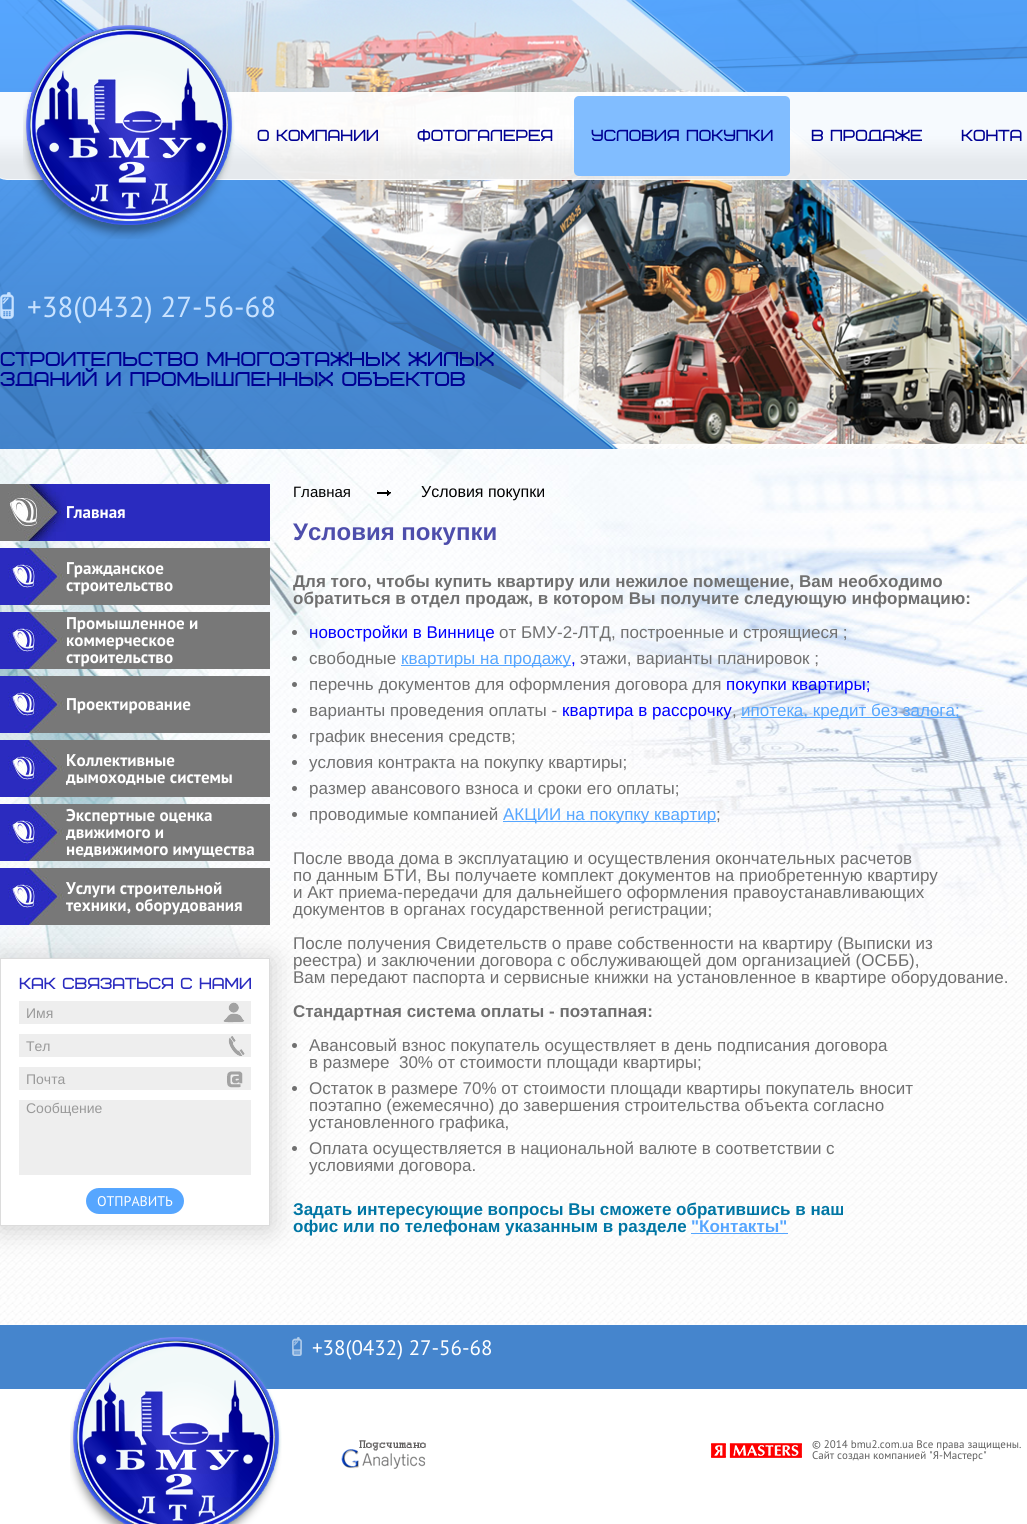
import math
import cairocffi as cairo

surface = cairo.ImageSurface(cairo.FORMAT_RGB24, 1027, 1524)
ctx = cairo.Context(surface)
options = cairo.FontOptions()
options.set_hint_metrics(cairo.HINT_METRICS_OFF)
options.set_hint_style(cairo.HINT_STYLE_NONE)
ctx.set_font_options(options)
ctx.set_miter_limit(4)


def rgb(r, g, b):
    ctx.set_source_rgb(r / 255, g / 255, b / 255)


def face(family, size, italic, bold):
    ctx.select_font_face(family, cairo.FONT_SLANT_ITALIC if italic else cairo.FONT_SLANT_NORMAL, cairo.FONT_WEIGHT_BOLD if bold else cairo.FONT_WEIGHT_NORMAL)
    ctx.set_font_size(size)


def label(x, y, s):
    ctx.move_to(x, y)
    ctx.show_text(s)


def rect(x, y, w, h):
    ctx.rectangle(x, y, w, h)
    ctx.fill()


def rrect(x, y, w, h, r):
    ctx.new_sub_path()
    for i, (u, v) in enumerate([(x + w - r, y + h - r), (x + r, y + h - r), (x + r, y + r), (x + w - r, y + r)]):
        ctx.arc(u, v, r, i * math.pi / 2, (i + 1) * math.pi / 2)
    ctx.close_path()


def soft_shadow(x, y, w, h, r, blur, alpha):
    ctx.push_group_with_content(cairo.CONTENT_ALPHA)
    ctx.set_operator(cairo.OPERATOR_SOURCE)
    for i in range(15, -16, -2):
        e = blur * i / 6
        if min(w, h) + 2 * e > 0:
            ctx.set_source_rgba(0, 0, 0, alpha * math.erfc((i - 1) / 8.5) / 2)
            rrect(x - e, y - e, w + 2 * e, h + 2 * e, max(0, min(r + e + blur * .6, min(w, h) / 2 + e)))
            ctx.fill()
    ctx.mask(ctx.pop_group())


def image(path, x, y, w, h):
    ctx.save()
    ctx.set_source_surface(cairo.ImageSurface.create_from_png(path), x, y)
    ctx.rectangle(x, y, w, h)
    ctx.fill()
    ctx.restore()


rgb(255, 255, 255)
ctx.paint()
image('image0.png', 0, 444, 1027, 881)
rgb(76, 148, 227)
rect(60, 0, 2, 2)
image('image1.png', 62, 0, 555, 444)
image('image2.png', 62, 0, 965, 444)
image('image3.png', 0, 0, 1027, 449)
image('image4.png', 0, 92, 1027, 88)
image('image5.png', 23, 25, 212, 214)
face('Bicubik', 16, 0, 0)
rgb(0, 0, 147)
label(257, 141, 'О КОМПАНИИ')
label(417, 141, 'ФОТОГАЛЕРЕЯ')
rgb(129, 189, 255)
rrect(574, 96, 216, 80, 5)
ctx.fill()
rgb(0, 0, 147)
label(591, 141, 'УСЛОВИЯ ПОКУПКИ')
label(811, 141, 'В ПРОДАЖЕ')
label(961, 141, 'КОНТА')
image('image6.png', 0, 292, 14, 27)
face('PT Sans', 29, 0, 0)
rgb(200, 226, 255)
label(27, 317, '+38(0432) 27-56-68')
face('Bicubik', 20, 0, 0)
rgb(0, 0, 147)
label(0, 366, 'СТРОИТЕЛЬСТВО МНОГОЭТАЖНЫХ ЖИЛЫХ')
label(0, 386, 'ЗДАНИЙ И ПРОМЫШЛЕННЫХ ОБЪЕКТОВ')
image('image7.png', 0, 449, 1027, 848)
image('image8.png', 0, 484, 66, 57)
rgb(42, 43, 191)
rect(66, 484, 204, 57)
face('PT Sans', 17, 0, 1)
rgb(255, 255, 255)
label(66, 518, 'Главная')
image('image9.png', 0, 548, 66, 57)
rgb(120, 120, 120)
rect(66, 548, 204, 57)
rgb(255, 255, 255)
label(66, 574, 'Гражданское')
label(66, 591, 'строительство')
image('image9.png', 0, 612, 66, 57)
rgb(120, 120, 120)
rect(66, 612, 204, 57)
rgb(255, 255, 255)
label(66, 629, 'Промышленное и')
label(66, 646, 'коммерческое')
label(66, 663, 'строительство')
image('image9.png', 0, 676, 66, 57)
rgb(120, 120, 120)
rect(66, 676, 204, 57)
rgb(255, 255, 255)
label(66, 710, 'Проектирование')
rgb(120, 120, 120)
rect(66, 740, 204, 57)
rgb(255, 255, 255)
label(66, 783, 'дымоходные системы')
image('image9.png', 0, 740, 66, 57)
label(66, 766, 'Коллективные')
rgb(120, 120, 120)
rect(66, 804, 204, 57)
rgb(255, 255, 255)
label(66, 838, 'движимого и')
image('image9.png', 0, 804, 66, 57)
label(66, 821, 'Экспертные оценка')
label(66, 855, 'недвижимого имущества')
rgb(0, 0, 0)
soft_shadow(0, 960, 270, 268, 0, 14.5, 0.2)
rgb(120, 120, 120)
rect(66, 868, 204, 57)
rgb(255, 255, 255)
label(66, 894, 'Услуги строительной')
image('image9.png', 0, 868, 66, 57)
label(66, 911, 'техники, оборудования')
ctx.rectangle(0.5, 958.5, 269, 267)
ctx.fill_preserve()
rgb(220, 220, 220)
ctx.set_line_width(1)
ctx.stroke()
face('Bicubik', 16, 0, 0)
rgb(42, 43, 191)
label(19, 989, 'Как связаться с нами')
rgb(238, 238, 238)
rect(19, 1001, 232, 23)
image('image10.png', 223, 1002, 22, 21)
face('Liberation Sans', 14, 0, 0)
rgb(153, 153, 153)
label(26, 1018, 'Имя')
rgb(238, 238, 238)
rect(19, 1034, 232, 23)
image('image11.png', 228, 1036, 17, 20)
rgb(153, 153, 153)
label(26, 1051, 'Тел')
rgb(238, 238, 238)
rect(19, 1067, 232, 23)
image('image12.png', 227, 1071, 16, 17)
rgb(153, 153, 153)
label(26, 1084, 'Почта')
rgb(238, 238, 238)
rect(19, 1100, 232, 75)
rgb(153, 153, 153)
label(26, 1113, 'Сообщение')
rgb(86, 166, 255)
rrect(86, 1188, 98, 26, 13)
ctx.fill()
face('PT Sans', 14, 0, 0)
rgb(255, 255, 255)
label(97, 1206, 'ОТПРАВИТЬ')
image('image13.png', 377, 490, 14, 6)
face('Liberation Sans', 15, 0, 0)
rgb(0, 0, 0)
label(293, 497, 'Главная')
face('Liberation Sans', 16, 0, 0)
label(421, 497, 'Условия покупки')
face('Liberation Sans', 24, 0, 1)
rgb(78, 78, 172)
label(293, 540, 'Условия покупки')
face('Liberation Sans', 17, 0, 1)
rgb(112, 112, 112)
label(293, 587, 'Для того, чтобы купить квартиру или нежилое помещение, Вам необходимо')
label(293, 604, 'обратиться в отдел продаж, в котором Вы получите следующую информацию:')
ctx.new_path()
ctx.arc(294.5, 632.5, 2.5, 0, 2 * math.pi)
ctx.fill()
face('Liberation Sans', 17, 0, 0)
rgb(0, 0, 255)
label(309, 638, 'новостройки в Виннице')
rgb(112, 112, 112)
label(499, 638, 'от БМУ-2-ЛТД, построенные и строящиеся ;')
ctx.new_path()
ctx.arc(294.5, 658.5, 2.5, 0, 2 * math.pi)
ctx.fill()
label(309, 664, 'свободные')
rgb(86, 166, 255)
rect(401, 665, 170, 1)
label(401, 664, 'квартиры на продажу')
rgb(112, 112, 112)
label(580, 664, 'этажи, варианты планировок ;')
rgb(0, 0, 255)
label(571, 664, ',')
rgb(112, 112, 112)
ctx.new_path()
ctx.arc(294.5, 684.5, 2.5, 0, 2 * math.pi)
ctx.fill()
label(309, 690, 'перечнь документов для оформления договора для')
rgb(0, 0, 255)
label(726, 690, 'покупки квартиры;')
rgb(112, 112, 112)
ctx.new_path()
ctx.arc(294.5, 710.5, 2.5, 0, 2 * math.pi)
ctx.fill()
label(309, 716, 'варианты проведения оплаты -')
rgb(0, 0, 255)
label(562, 716, 'квартира в рассрочку')
rgb(86, 166, 255)
rect(741, 717, 219, 1)
label(741, 716, 'ипотека, кредит без залога;')
rgb(112, 112, 112)
label(732, 716, ',')
ctx.new_path()
ctx.arc(294.5, 736.5, 2.5, 0, 2 * math.pi)
ctx.fill()
label(309, 742, 'график внесения средств;')
ctx.new_path()
ctx.arc(294.5, 762.5, 2.5, 0, 2 * math.pi)
ctx.fill()
label(309, 768, 'условия контракта на покупку квартиры;')
ctx.new_path()
ctx.arc(294.5, 788.5, 2.5, 0, 2 * math.pi)
ctx.fill()
label(309, 794, 'размер авансового взноса и сроки его оплаты;')
ctx.new_path()
ctx.arc(294.5, 814.5, 2.5, 0, 2 * math.pi)
ctx.fill()
label(309, 820, 'проводимые компанией')
rgb(86, 166, 255)
rect(503, 821, 213, 1)
label(503, 820, 'АКЦИИ на покупку квартир')
rgb(112, 112, 112)
label(716, 820, ';')
label(293, 864, 'После ввода дома в эксплуатацию и осуществления окончательных расчетов')
label(293, 881, 'по данным БТИ, Вы получаете комплект документов на приобретенную квартиру')
label(293, 898, 'и Акт приема-передачи для дальнейшего оформления правоустанавливающих')
label(293, 915, 'документов в органах государственной регистрации;')
label(293, 949, 'После получения Свидетельств о праве собственности на квартиру (Выписки из')
label(293, 966, 'реестра) и заключении договора с обслуживающей дом организацией (ОСББ),')
label(293, 983, 'Вам передают паспорта и сервисные книжки на установленное в квартире оборудование.')
face('Liberation Sans', 17, 0, 1)
label(293, 1017, 'Стандартная система оплаты - поэтапная:')
ctx.new_path()
ctx.arc(294.5, 1045.5, 2.5, 0, 2 * math.pi)
ctx.fill()
face('Liberation Sans', 17, 0, 0)
label(309, 1051, 'Авансовый взнос покупатель осуществляет в день подписания договора')
label(309, 1068, 'в размере  30% от стоимости площади квартиры;')
ctx.new_path()
ctx.arc(294.5, 1088.5, 2.5, 0, 2 * math.pi)
ctx.fill()
label(309, 1094, 'Остаток в размере 70% от стоимости площади квартиры покупатель вносит')
label(309, 1111, 'поэтапно (ежемесячно) до завершения строительства объекта согласно')
label(309, 1128, 'установленного графика,')
ctx.new_path()
ctx.arc(294.5, 1148.5, 2.5, 0, 2 * math.pi)
ctx.fill()
label(309, 1154, 'Оплата осуществляется в национальной валюте в соответствии с')
label(309, 1171, 'условиями договора.')
face('Liberation Sans', 17, 0, 1)
rgb(0, 118, 164)
label(293, 1215, 'Задать интересующие вопросы Вы сможете обратившись в наш')
label(293, 1232, 'офис или по телефонам указанным в разделе')
rgb(86, 166, 255)
label(691, 1232, '"Контакты"')
rect(691, 1233, 97, 1)
rgb(69, 133, 205)
rect(0, 1325, 1027, 64)
image('image14.png', 292, 1337, 10, 19)
face('PT Sans', 21, 0, 0)
rgb(255, 255, 255)
label(312, 1355, '+38(0432) 27-56-68')
image('image15.png', 70, 1337, 212, 187)
image('image16.png', 341, 1440, 85, 29)
image('image17.png', 711, 1443, 91, 15)
face('PT Sans', 11, 0, 0)
rgb(94, 94, 94)
label(812, 1448, '© 2014 bmu2.com.ua Все права защищены.')
label(812, 1459, 'Сайт создан компанией "Я-Мастерс"')
surface.write_to_png('render.png')
